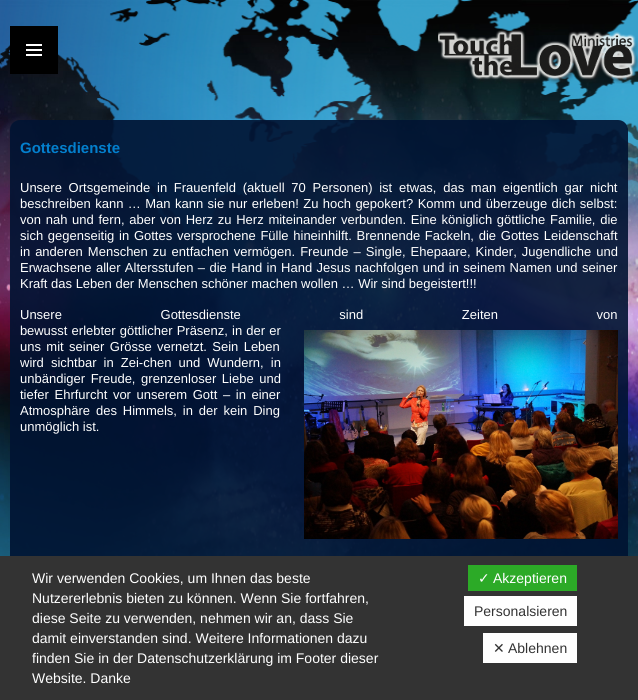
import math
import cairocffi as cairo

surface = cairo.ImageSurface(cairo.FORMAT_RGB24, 638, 700)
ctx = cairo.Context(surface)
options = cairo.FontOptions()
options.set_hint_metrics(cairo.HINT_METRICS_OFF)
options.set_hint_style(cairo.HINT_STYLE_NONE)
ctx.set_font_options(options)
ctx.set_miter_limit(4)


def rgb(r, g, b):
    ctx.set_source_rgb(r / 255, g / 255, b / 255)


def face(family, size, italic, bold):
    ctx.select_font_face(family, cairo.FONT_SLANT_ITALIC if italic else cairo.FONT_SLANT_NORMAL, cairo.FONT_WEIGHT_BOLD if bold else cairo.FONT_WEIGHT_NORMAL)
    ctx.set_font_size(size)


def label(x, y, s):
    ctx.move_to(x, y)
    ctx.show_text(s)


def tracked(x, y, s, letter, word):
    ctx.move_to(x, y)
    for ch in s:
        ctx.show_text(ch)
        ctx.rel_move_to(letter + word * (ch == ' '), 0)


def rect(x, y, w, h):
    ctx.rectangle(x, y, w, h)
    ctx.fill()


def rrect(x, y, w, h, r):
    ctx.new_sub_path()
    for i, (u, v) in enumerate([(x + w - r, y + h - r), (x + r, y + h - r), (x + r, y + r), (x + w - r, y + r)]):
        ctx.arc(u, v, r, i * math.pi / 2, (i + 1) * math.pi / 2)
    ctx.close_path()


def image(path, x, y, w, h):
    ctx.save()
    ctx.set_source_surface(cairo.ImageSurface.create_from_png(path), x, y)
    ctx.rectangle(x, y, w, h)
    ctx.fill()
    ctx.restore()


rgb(255, 255, 255)
ctx.paint()
image('image0.png', 0, 0, 638, 556)
image('image1.png', 0, 0, 638, 269)
rgb(0, 0, 0)
rect(10, 26, 48, 48)
image('image2.png', 26, 44, 16, 12)
image('image3.png', 438, 30, 200, 54)
image('image5.png', 0, 371, 638, 185)
ctx.set_source_rgba(0, 0.075, 0.196, 0.9)
rrect(10, 120, 618, 480, 10)
ctx.fill()
face('Liberation Sans', 15, 0, 1)
rgb(3, 127, 205)
label(20, 153, 'Gottesdienste')
face('Liberation Sans', 13, 0, 0)
rgb(255, 255, 255)
tracked(20, 192, 'Unsere Ortsgemeinde in Frauenfeld (aktuell 70 Personen) ist etwas, das man eigentlich gar nicht', 0, 3.1)
tracked(20, 208, 'beschreiben kann … Man kann sie nur erleben! Zu hoch gepokert? Komm und überzeuge dich selbst:', 0, 0.8)
tracked(20, 224, 'von nah und fern, aber von Herz zu Herz miteinander verbunden. Eine königlich göttliche Familie, die', 0, 1.1)
tracked(20, 240, 'sich gegenseitig in Gottes versprochene Fülle hineinhilft. Brennende Fackeln, die Gottes Leidenschaft', 0, 1.1)
tracked(20, 256, 'in anderen Menschen zu entfachen vermögen. Freunde – Single, Ehepaare, Kinder, Jugendliche und', 0, 1.4)
tracked(20, 272, 'Erwachsene aller Altersstufen – die Hand in Hand Jesus nachfolgen und in seinem Namen und seiner', 0, 0.75)
label(20, 288, 'Kraft das Leben der Menschen schöner machen wollen … Wir sind begeistert!!!')
tracked(20, 319, 'Unsere Gottesdienste sind Zeiten von', 0, 95)
label(20, 335, 'b')
tracked(27, 335, 'ewusst erlebter göttlicher Präsenz, in der er', 0, 0.5)
image('image4.png', 304, 330, 314, 209)
tracked(20, 351, 'uns mit seiner Grösse vernetzt. Sein Leben', 0, 1.75)
tracked(20, 367, 'wird sichtbar in Zei-chen und Wundern, in', 0, 3.5)
tracked(20, 383, 'unbändiger Freude, grenzenloser Liebe und', 0, 2)
tracked(20, 399, 'tiefer Ehrfurcht vor unserem Gott – in einer', 0, 2)
tracked(20, 415, 'Atmosphäre des Himmels, in der kein Ding', 0, 2.25)
label(20, 431, 'unmöglich ist.')
rgb(51, 51, 51)
rect(0, 556, 638, 144)
face('Liberation Sans', 14, 0, 0)
rgb(255, 255, 255)
label(32, 583, 'Wir verwenden Cookies, um Ihnen das beste')
label(32, 603, 'Nutzererlebnis bieten zu können. Wenn Sie fortfahren,')
label(32, 623, 'diese Seite zu verwenden, nehmen wir an, dass Sie')
label(32, 643, 'damit einverstanden sind. Weitere Informationen dazu')
label(32, 663, 'finden Sie in der Datenschutzerklärung im Footer dieser')
label(32, 683, 'Website. Danke')
rgb(44, 170, 39)
rect(468, 565, 109, 26)
face('DejaVu Sans', 14, 0, 0)
rgb(255, 255, 255)
label(478, 583, '✓')
face('Liberation Sans', 14, 0, 0)
label(493, 583, 'Akzeptieren')
rect(464, 596, 113, 30)
rgb(51, 51, 51)
label(474, 616, 'Personalsieren')
rgb(255, 255, 255)
rect(483, 633, 94, 30)
face('DejaVu Sans', 14, 0, 0)
rgb(51, 51, 51)
label(493, 653, '✕')
face('Liberation Sans', 14, 0, 0)
label(508, 653, 'Ablehnen')
surface.write_to_png('render.png')
